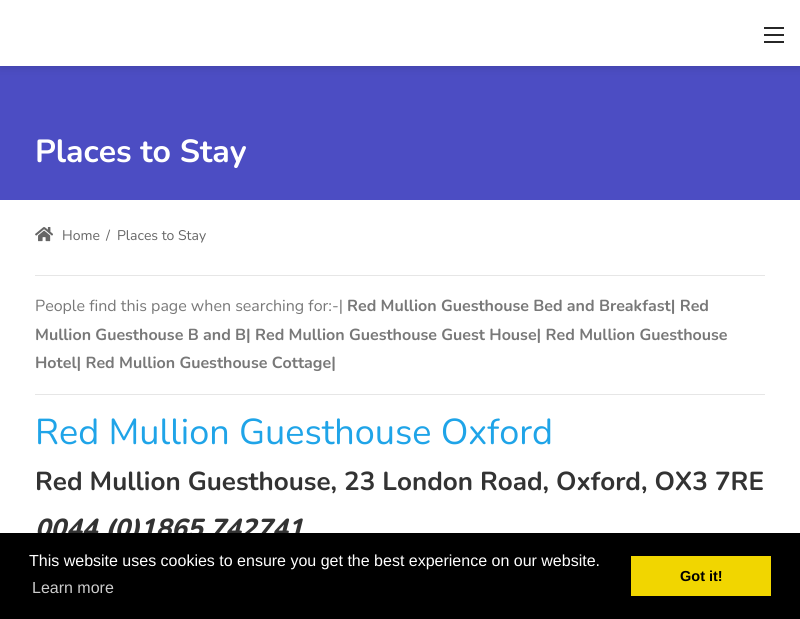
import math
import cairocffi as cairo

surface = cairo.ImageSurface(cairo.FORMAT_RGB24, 800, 619)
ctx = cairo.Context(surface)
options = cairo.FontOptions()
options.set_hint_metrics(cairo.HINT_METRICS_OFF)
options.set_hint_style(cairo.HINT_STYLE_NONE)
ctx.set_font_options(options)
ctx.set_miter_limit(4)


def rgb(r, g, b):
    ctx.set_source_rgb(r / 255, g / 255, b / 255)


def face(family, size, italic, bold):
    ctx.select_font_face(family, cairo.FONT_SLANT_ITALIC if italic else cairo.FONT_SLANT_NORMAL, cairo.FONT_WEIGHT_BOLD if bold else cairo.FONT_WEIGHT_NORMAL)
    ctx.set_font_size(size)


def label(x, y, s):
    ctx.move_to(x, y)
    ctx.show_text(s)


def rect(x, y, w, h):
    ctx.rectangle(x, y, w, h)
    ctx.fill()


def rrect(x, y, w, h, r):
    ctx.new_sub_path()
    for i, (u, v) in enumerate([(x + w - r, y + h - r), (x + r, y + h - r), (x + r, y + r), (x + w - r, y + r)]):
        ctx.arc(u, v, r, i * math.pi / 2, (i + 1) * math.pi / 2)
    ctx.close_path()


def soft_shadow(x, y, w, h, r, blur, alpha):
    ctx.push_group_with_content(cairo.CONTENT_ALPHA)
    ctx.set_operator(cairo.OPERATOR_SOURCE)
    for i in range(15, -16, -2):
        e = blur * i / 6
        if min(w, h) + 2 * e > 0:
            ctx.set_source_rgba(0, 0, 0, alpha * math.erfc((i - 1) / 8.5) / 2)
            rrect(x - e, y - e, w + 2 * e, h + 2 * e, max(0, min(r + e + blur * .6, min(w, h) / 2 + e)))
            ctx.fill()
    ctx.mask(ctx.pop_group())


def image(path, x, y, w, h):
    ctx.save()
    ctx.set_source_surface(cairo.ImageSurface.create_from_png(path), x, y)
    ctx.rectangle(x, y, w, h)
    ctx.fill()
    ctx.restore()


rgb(255, 255, 255)
ctx.paint()
rgb(76, 77, 195)
rect(0, 66, 800, 134)
rgb(0, 0, 0)
soft_shadow(0, 0, 800, 66, 0, 5, 0.2)
rgb(255, 255, 255)
rect(0, 0, 800, 66)
rgb(39, 39, 39)
rect(764, 27, 20, 2)
rect(764, 34, 20, 2)
rect(764, 41, 20, 2)
face('Nunito', 32, 0, 1)
rgb(255, 255, 255)
label(35, 162, 'Places to Stay')
image('image0.png', 35, 227, 18, 15)
face('Nunito', 14, 0, 0)
rgb(102, 102, 102)
label(62, 240, 'Home')
label(106, 240, '/')
label(117, 240, 'Places to Stay')
rgb(230, 230, 230)
rect(35, 275, 730, 1)
face('Nunito', 16, 0, 0)
rgb(120, 120, 120)
label(35, 311, 'People find this page when searching for:-|')
face('Nunito', 16, 0, 1)
label(347, 311, 'Red Mullion Guesthouse Bed and Breakfast| Red')
label(35, 340, 'Mullion Guesthouse B and B| Red Mullion Guesthouse Guest House| Red Mullion Guesthouse')
label(35, 368, 'Hotel| Red Mullion Guesthouse Cottage|')
rgb(230, 230, 230)
rect(35, 394, 730, 1)
face('Nunito', 36, 0, 0)
rgb(31, 164, 232)
label(35, 444, 'Red Mullion Guesthouse Oxford')
face('Nunito', 26, 0, 1)
rgb(51, 51, 51)
label(35, 490, 'Red Mullion Guesthouse, 23 London Road, Oxford, OX3 7RE')
face('Nunito ExtraBold', 26, 1, 0)
label(35, 537, '0044 (0)1865 742741')
rgb(0, 0, 0)
rect(0, 533, 800, 86)
face('Liberation Sans', 16, 0, 0)
rgb(255, 255, 255)
label(29, 566, 'This website uses cookies to ensure you get the best experience on our website.')
rgb(204, 204, 204)
label(32, 593, 'Learn more')
rgb(241, 214, 0)
rect(631, 556, 140, 40)
face('Liberation Sans', 14.5, 0, 1)
rgb(0, 0, 0)
label(680, 581, 'Got it!')
surface.write_to_png('render.png')
